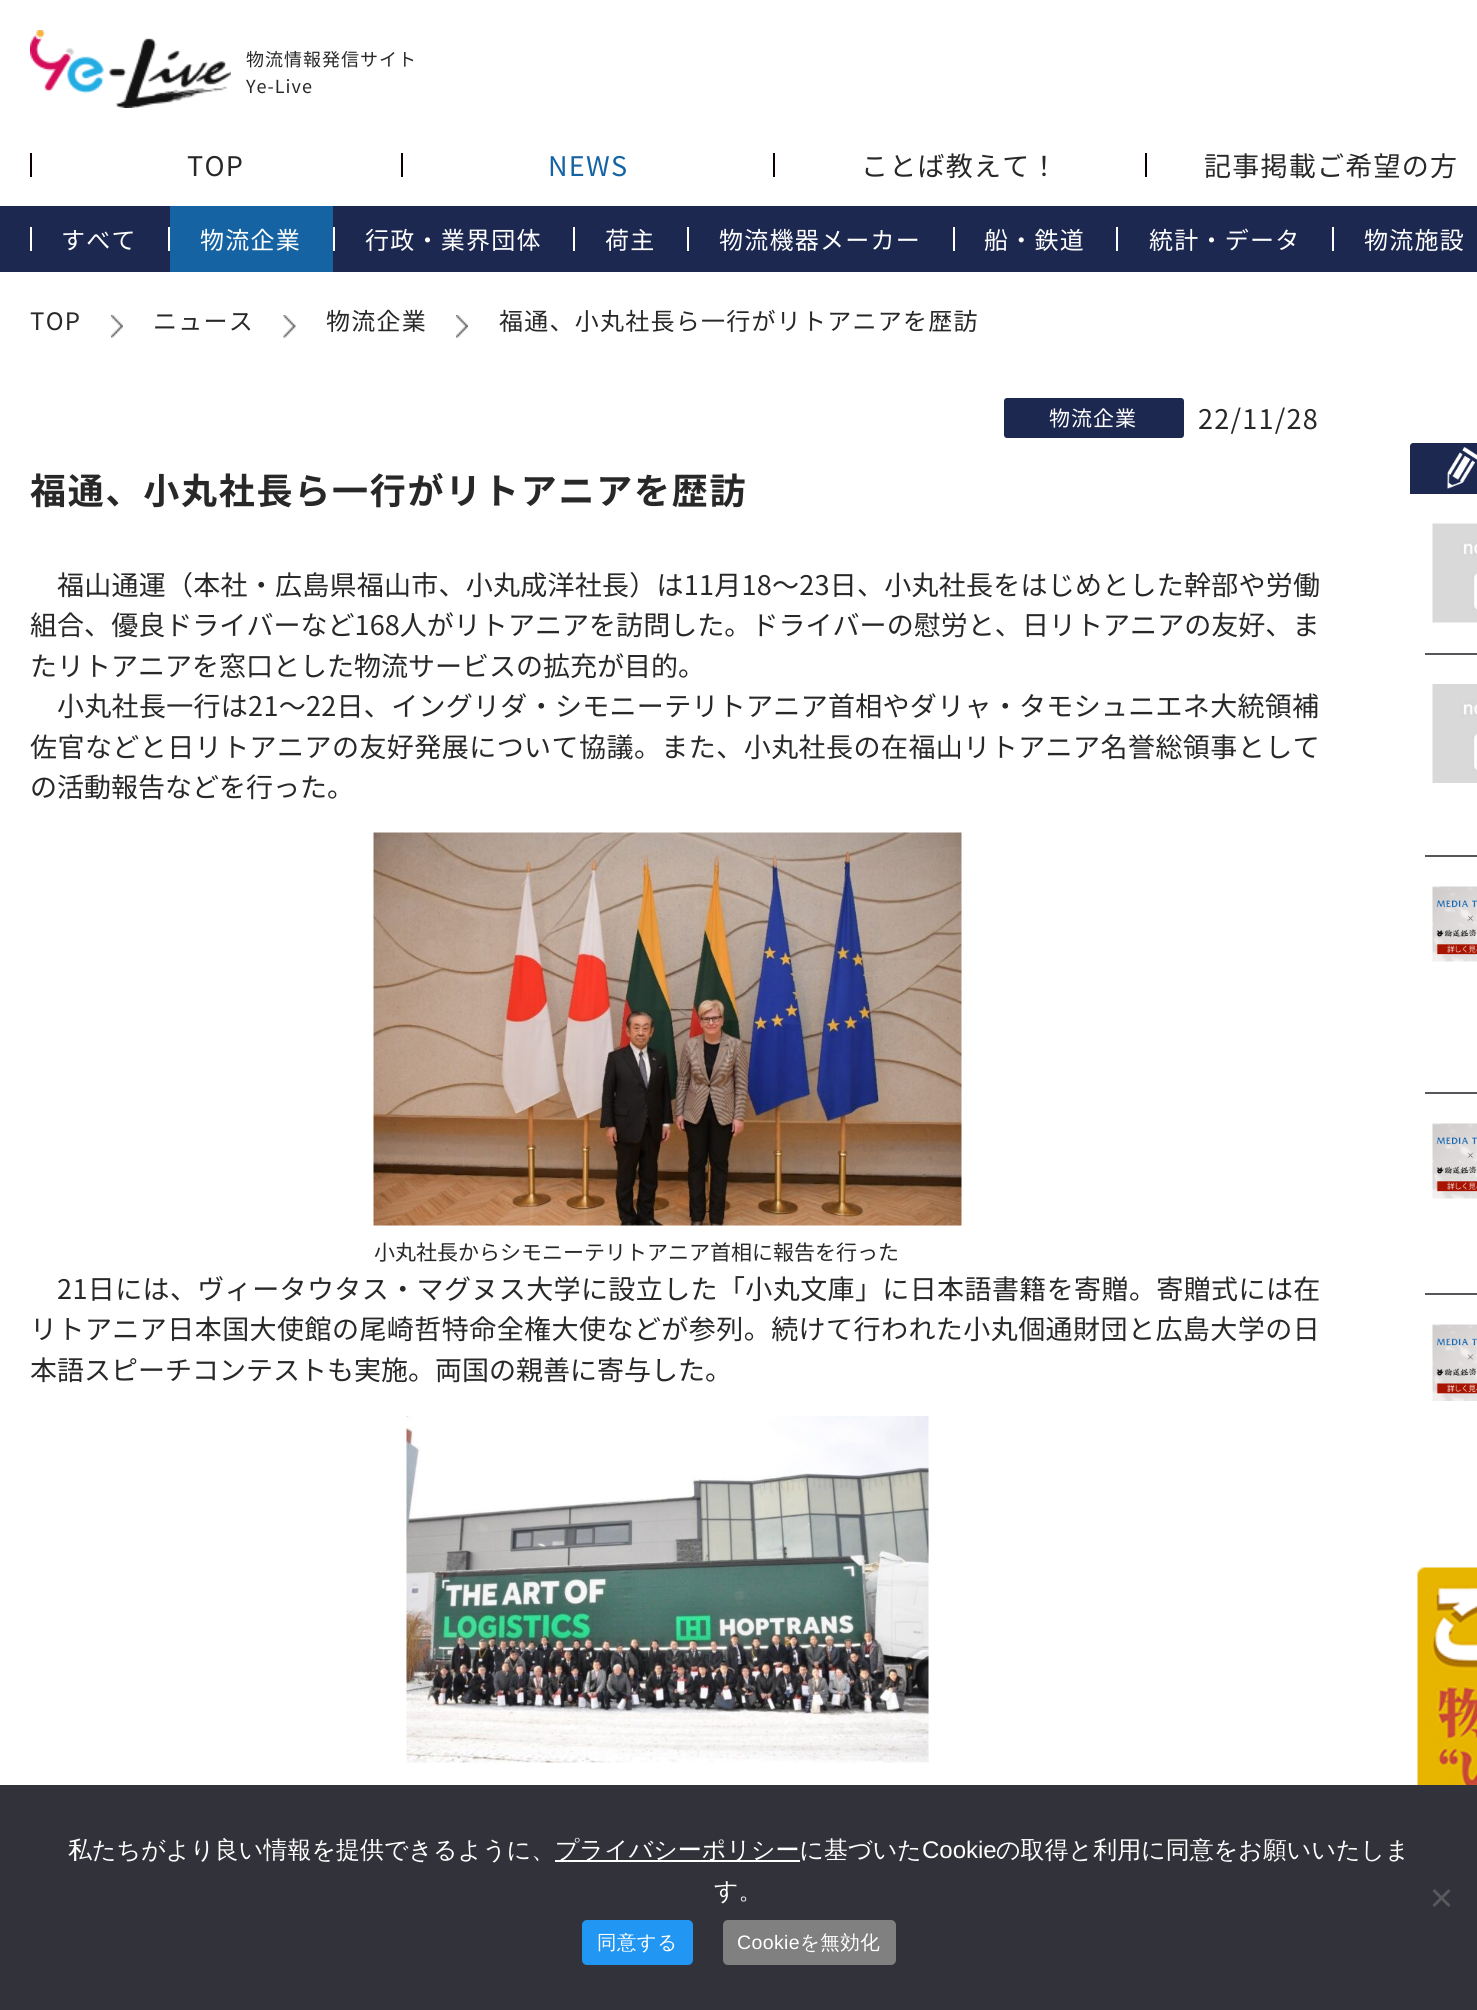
import math
import cairocffi as cairo

surface = cairo.ImageSurface(cairo.FORMAT_RGB24, 1477, 2010)
ctx = cairo.Context(surface)
options = cairo.FontOptions()
options.set_hint_metrics(cairo.HINT_METRICS_OFF)
options.set_hint_style(cairo.HINT_STYLE_NONE)
ctx.set_font_options(options)
ctx.set_miter_limit(4)


def rgb(r, g, b):
    ctx.set_source_rgb(r / 255, g / 255, b / 255)


def face(family, size, italic, bold):
    ctx.select_font_face(family, cairo.FONT_SLANT_ITALIC if italic else cairo.FONT_SLANT_NORMAL, cairo.FONT_WEIGHT_BOLD if bold else cairo.FONT_WEIGHT_NORMAL)
    ctx.set_font_size(size)


def label(x, y, s):
    ctx.move_to(x, y)
    ctx.show_text(s)


def tracked(x, y, s, letter, word):
    ctx.move_to(x, y)
    for ch in s:
        ctx.show_text(ch)
        ctx.rel_move_to(letter + word * (ch == ' '), 0)


def rect(x, y, w, h):
    ctx.rectangle(x, y, w, h)
    ctx.fill()


def rrect(x, y, w, h, r):
    ctx.new_sub_path()
    for i, (u, v) in enumerate([(x + w - r, y + h - r), (x + r, y + h - r), (x + r, y + r), (x + w - r, y + r)]):
        ctx.arc(u, v, r, i * math.pi / 2, (i + 1) * math.pi / 2)
    ctx.close_path()


def image(path, x, y, w, h):
    ctx.save()
    ctx.set_source_surface(cairo.ImageSurface.create_from_png(path), x, y)
    ctx.rectangle(x, y, w, h)
    ctx.fill()
    ctx.restore()


rgb(255, 255, 255)
ctx.paint()
image('image0.png', 30, 30, 201, 78)
face('Noto Sans CJK JP', 18, 0, 0)
rgb(40, 40, 40)
tracked(246, 66, '物流情報発信サイト', 1, 0)
tracked(246, 93, 'Ye-Live', 1, 0)
rgb(11, 0, 0)
rect(30, 153, 2, 24)
face('Noto Sans CJK JP', 27, 0, 0)
rgb(40, 40, 40)
tracked(187, 176, 'TOP', 1.25, 0)
rgb(11, 0, 0)
rect(401, 153, 2, 24)
rgb(21, 99, 163)
tracked(548, 176, 'NEWS', 1.25, 0)
rgb(11, 0, 0)
rect(773, 153, 2, 24)
rgb(40, 40, 40)
tracked(861, 176, 'ことば教えて！', 1.25, 0)
rgb(11, 0, 0)
rect(1145, 153, 2, 24)
rgb(40, 40, 40)
tracked(1204, 176, '記事掲載ご希望の方', 1.25, 0)
rgb(28, 40, 80)
rect(0, 206, 1477, 66)
rgb(255, 255, 255)
rect(30, 227, 2, 24)
face('Noto Sans CJK JP', 24, 0, 0)
tracked(61, 249, 'すべて', 1.25, 0)
rect(168, 227, 2, 24)
rgb(21, 99, 163)
rect(170, 206, 163, 66)
rgb(255, 255, 255)
tracked(200, 249, '物流企業', 1.25, 0)
rect(333, 227, 2, 24)
tracked(365, 249, '行政・業界団体', 1.25, 0)
rect(573, 227, 2, 24)
tracked(605, 249, '荷主', 1.25, 0)
rect(687, 227, 2, 24)
tracked(719, 249, '物流機器メーカー', 1.25, 0)
rect(953, 227, 2, 24)
tracked(984, 249, '船・鉄道', 1.25, 0)
rect(1116, 227, 2, 24)
tracked(1149, 249, '統計・データ', 1.25, 0)
rect(1332, 227, 2, 24)
tracked(1364, 249, '物流施設', 1.25, 0)
rgb(40, 40, 40)
tracked(30, 330, 'TOP', 1.25, 0)
image('image1.png', 111, 315, 12, 23)
tracked(153, 330, 'ニュース', 1.25, 0)
image('image2.png', 283, 315, 13, 23)
tracked(326, 330, '物流企業', 1.25, 0)
image('image3.png', 456, 315, 12, 23)
tracked(499, 330, '福通、小丸社長ら一行がリトアニアを歴訪', 1.25, 0)
rgb(28, 40, 80)
rrect(1004, 398, 180, 40, 3)
ctx.fill()
face('Noto Sans CJK JP', 21, 0, 0)
rgb(255, 255, 255)
tracked(1049, 426, '物流企業', 1, 0)
face('Noto Sans CJK JP', 27, 0, 0)
rgb(40, 40, 40)
tracked(1198, 429, '22/11/28', 1.25, 0)
face('Noto Sans CJK JP', 36, 0, 1)
tracked(30, 504, '福通、小丸社長ら一行がリトアニアを歴訪', 1.75, 0)
face('Noto Sans CJK JP', 27, 0, 0)
tracked(57, 595, '福山通運（本社・広島県福山市、小丸成洋社長）は11月18～23日、小丸社長をはじめとした幹部や労働', 0.25, 0)
tracked(30, 635, '組合、優良ドライバーなど168人がリトアニアを訪問した。ドライバーの慰労と、日リトアニアの友好、ま', 0.05, 0)
label(30, 676, 'たリトアニアを窓口とした物流サービスの拡充が目的。')
tracked(57, 716, '小丸社長一行は21～22日、イングリダ・シモニーテリトアニア首相やダリャ・タモシュニエネ大統領補', 0.3, 0)
tracked(30, 757, '佐官などと日リトアニアの友好発展について協議。また、小丸社長の在福山リトアニア名誉総領事として', 0.45, 0)
label(30, 797, 'の活動報告などを行った。')
image('image4.png', 373, 832, 589, 394)
face('Noto Sans CJK JP', 21, 0, 0)
label(374, 1260, '小丸社長からシモニーテリトアニア首相に報告を行った')
face('Noto Sans CJK JP', 27, 0, 0)
tracked(57, 1299, '21日には、ヴィータウタス・マグヌス大学に設立した「小丸文庫」に日本語書籍を寄贈。寄贈式には在', 0.4, 0)
tracked(30, 1339, 'リトアニア日本国大使館の尾崎哲特命全権大使などが参列。続けて行われた小丸個通財団と広島大学の日', 0.45, 0)
label(30, 1380, '本語スピーチコンテストも実施。両国の親善に寄与した。')
image('image5.png', 406, 1416, 523, 347)
rgb(28, 40, 80)
ctx.new_path()
ctx.move_to(1413, 443)
ctx.line_to(1477, 443)
ctx.curve_to(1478.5, 443, 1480, 444.5, 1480, 446)
ctx.line_to(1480, 494)
ctx.line_to(1410, 494)
ctx.line_to(1410, 446)
ctx.curve_to(1410, 444.5, 1411.5, 443, 1413, 443)
ctx.close_path()
ctx.fill()
image('image6.png', 1447, 447, 30, 42)
image('image7.png', 1432, 523, 45, 100)
rgb(85, 87, 91)
rect(1425, 653, 52, 2)
image('image8.png', 1432, 684, 45, 99)
rect(1425, 855, 52, 2)
image('image9.png', 1432, 886, 45, 76)
rect(1425, 1092, 52, 2)
image('image9.png', 1432, 1123, 45, 76)
rect(1425, 1293, 52, 2)
image('image10.png', 1432, 1324, 45, 77)
image('image11.png', 1417, 1567, 60, 218)
rgb(50, 50, 58)
rect(0, 1785, 1477, 225)
face('WenQuanYi Zen Hei Medium', 24, 0, 0)
rgb(255, 255, 255)
label(68, 1858, '私たちがより良い情報を提供できるように、')
rect(555, 1860, 245, 2)
label(555, 1858, 'プライバシーポリシーに基づいた')
face('Liberation Sans', 24, 0, 0)
label(922, 1858, 'Cookie')
face('WenQuanYi Zen Hei Medium', 24, 0, 0)
label(996, 1858, 'の取得と利用に同意をお願いいたしま')
label(714, 1899, 'す。')
rgb(89, 89, 93)
ctx.new_path()
ctx.move_to(1448.5, 1889)
ctx.line_to(1450.5, 1891)
ctx.line_to(1434.5, 1907)
ctx.line_to(1432.5, 1905)
ctx.close_path()
ctx.fill()
ctx.new_path()
ctx.move_to(1432.5, 1891)
ctx.line_to(1434.5, 1889)
ctx.line_to(1450.5, 1905)
ctx.line_to(1448.5, 1907)
ctx.close_path()
ctx.fill()
rgb(33, 150, 243)
rrect(582, 1920, 111, 45, 5)
ctx.fill()
face('WenQuanYi Zen Hei Medium', 19.5, 0, 0)
rgb(255, 255, 255)
tracked(597, 1949, '同意する', 0.4, 0)
rgb(128, 128, 128)
rrect(723, 1920, 173, 45, 5)
ctx.fill()
face('Liberation Sans', 19.5, 0, 0)
rgb(255, 255, 255)
tracked(737, 1949, 'Cookie', 0.4, 0)
face('WenQuanYi Zen Hei Medium', 19.5, 0, 0)
tracked(800, 1949, 'を無効化', 0.4, 0)
surface.write_to_png('render.png')
